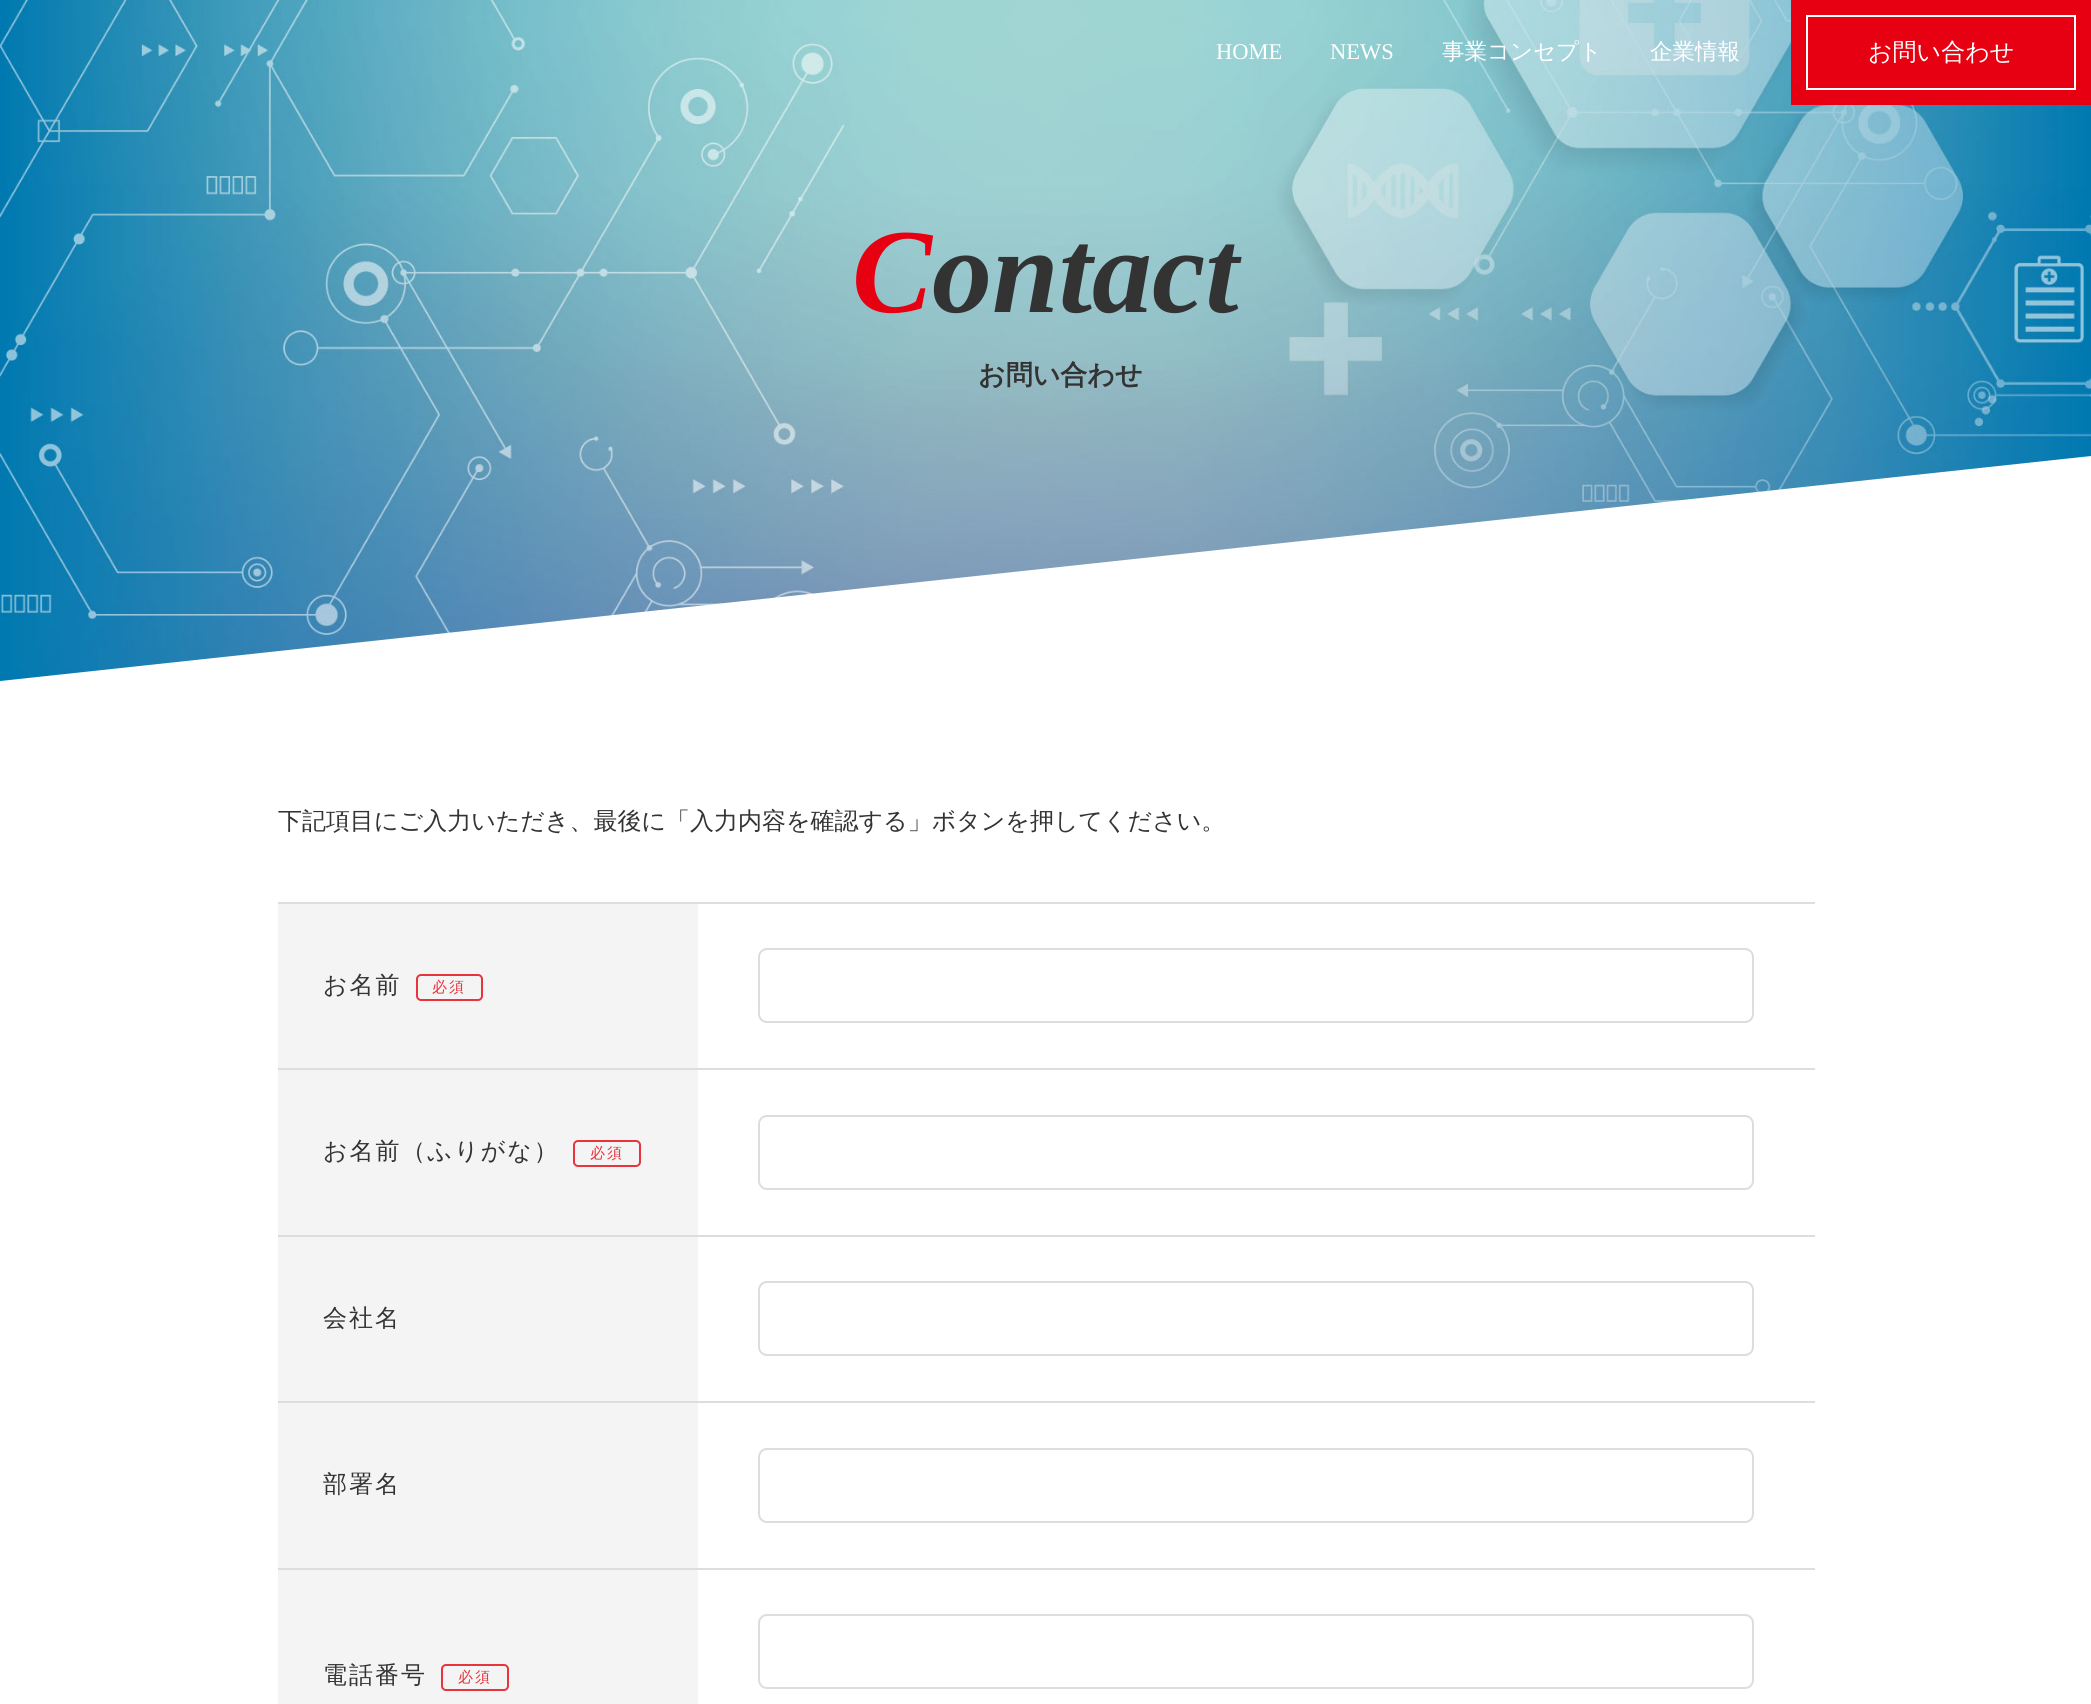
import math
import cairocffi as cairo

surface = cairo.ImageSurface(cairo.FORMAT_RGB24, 2091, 1704)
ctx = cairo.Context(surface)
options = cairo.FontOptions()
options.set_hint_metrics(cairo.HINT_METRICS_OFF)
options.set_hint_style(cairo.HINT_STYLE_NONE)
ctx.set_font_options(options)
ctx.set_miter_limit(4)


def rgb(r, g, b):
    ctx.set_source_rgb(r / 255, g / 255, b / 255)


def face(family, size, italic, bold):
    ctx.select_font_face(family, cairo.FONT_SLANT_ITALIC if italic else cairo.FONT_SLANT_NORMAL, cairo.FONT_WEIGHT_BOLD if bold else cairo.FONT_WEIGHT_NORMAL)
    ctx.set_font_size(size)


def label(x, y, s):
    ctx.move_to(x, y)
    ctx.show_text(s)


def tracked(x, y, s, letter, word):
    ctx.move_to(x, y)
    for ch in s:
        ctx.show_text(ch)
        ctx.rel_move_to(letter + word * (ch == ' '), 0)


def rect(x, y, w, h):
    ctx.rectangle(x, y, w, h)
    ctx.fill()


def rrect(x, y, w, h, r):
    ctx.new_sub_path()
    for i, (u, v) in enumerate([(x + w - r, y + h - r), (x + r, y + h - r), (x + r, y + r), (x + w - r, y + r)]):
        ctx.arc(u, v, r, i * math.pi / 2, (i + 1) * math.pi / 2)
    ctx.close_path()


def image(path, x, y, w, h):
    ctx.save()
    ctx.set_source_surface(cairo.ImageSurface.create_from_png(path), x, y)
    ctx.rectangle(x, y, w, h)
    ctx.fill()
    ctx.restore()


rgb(255, 255, 255)
ctx.paint()
image('image0.png', 0, 0, 2091, 681)
face('Liberation Serif', 22.5, 0, 0)
rgb(255, 255, 255)
label(1216, 59, 'HOME')
label(1330, 59, 'NEWS')
face('WenQuanYi Zen Hei Medium', 22.5, 0, 0)
label(1442, 59, '事業コンセプト')
label(1650, 59, '企業情報')
rgb(230, 0, 18)
rect(1791, 0, 300, 105)
ctx.rectangle(1807, 16, 268, 73)
rgb(255, 255, 255)
ctx.stroke()
face('WenQuanYi Zen Hei Medium', 24, 0, 0)
label(1868, 60, 'お問い合わせ')
face('Liberation Serif', 120, 1, 1)
rgb(230, 0, 18)
label(852, 312, 'C')
rgb(51, 51, 51)
label(932, 312, 'ontact')
face('WenQuanYi Zen Hei', 27, 0, 1)
label(978, 384, 'お問い合わせ')
rgb(255, 255, 255)
ctx.new_path()
ctx.move_to(2091, 681)
ctx.line_to(0, 681)
ctx.line_to(2091, 456)
ctx.close_path()
ctx.fill()
face('WenQuanYi Zen Hei Medium', 24, 0, 0)
rgb(51, 51, 51)
label(278, 829, '下記項目にご入力いただき、最後に「入力内容を確認する」ボタンを押してください。')
rgb(221, 221, 221)
rect(278, 902, 1537, 2)
rgb(244, 244, 244)
rect(278, 904, 420, 164)
rgb(51, 51, 51)
tracked(323, 993, 'お名前', 2, 0)
rrect(417, 975, 65, 25, 4)
rgb(232, 52, 61)
ctx.stroke()
face('WenQuanYi Zen Hei Medium', 15, 0, 0)
tracked(432, 992, '必須', 2, 0)
rrect(759, 949, 994, 73, 8)
rgb(221, 221, 221)
ctx.stroke()
rect(278, 1068, 1537, 2)
rgb(244, 244, 244)
rect(278, 1070, 420, 165)
face('WenQuanYi Zen Hei Medium', 24, 0, 0)
rgb(51, 51, 51)
tracked(323, 1159, 'お名前（ふりがな）', 2, 0)
rrect(574, 1141, 66, 25, 4)
rgb(232, 52, 61)
ctx.stroke()
face('WenQuanYi Zen Hei Medium', 15, 0, 0)
tracked(590, 1158, '必須', 2, 0)
rrect(759, 1116, 994, 73, 8)
rgb(221, 221, 221)
ctx.stroke()
rect(278, 1235, 1537, 2)
rgb(244, 244, 244)
rect(278, 1237, 420, 164)
face('WenQuanYi Zen Hei Medium', 24, 0, 0)
rgb(51, 51, 51)
tracked(323, 1326, '会社名', 2, 0)
rrect(759, 1282, 994, 73, 8)
rgb(221, 221, 221)
ctx.stroke()
rect(278, 1401, 1537, 2)
rgb(244, 244, 244)
rect(278, 1403, 420, 165)
rgb(51, 51, 51)
tracked(323, 1492, '部署名', 2, 0)
rrect(759, 1449, 994, 73, 8)
rgb(221, 221, 221)
ctx.stroke()
rect(278, 1568, 1537, 2)
rgb(244, 244, 244)
rect(278, 1570, 420, 134)
rgb(51, 51, 51)
tracked(323, 1683, '電話番号', 2, 0)
rrect(442, 1665, 66, 25, 4)
rgb(232, 52, 61)
ctx.stroke()
face('WenQuanYi Zen Hei Medium', 15, 0, 0)
tracked(458, 1682, '必須', 2, 0)
rrect(759, 1615, 994, 73, 8)
rgb(221, 221, 221)
ctx.stroke()
surface.write_to_png('render.png')
